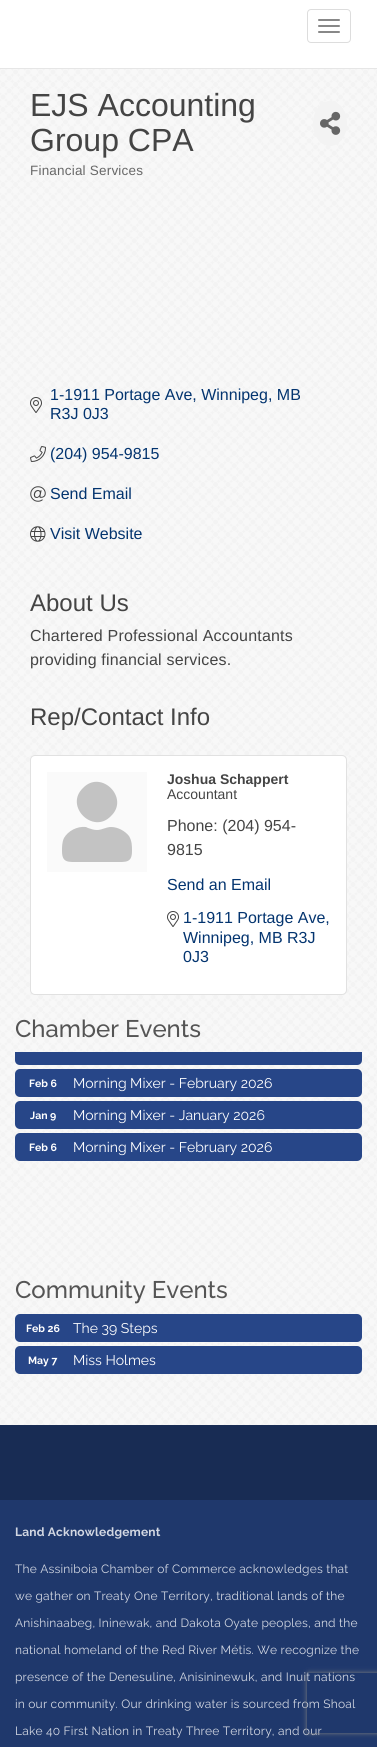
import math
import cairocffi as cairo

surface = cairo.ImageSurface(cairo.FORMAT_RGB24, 377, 1747)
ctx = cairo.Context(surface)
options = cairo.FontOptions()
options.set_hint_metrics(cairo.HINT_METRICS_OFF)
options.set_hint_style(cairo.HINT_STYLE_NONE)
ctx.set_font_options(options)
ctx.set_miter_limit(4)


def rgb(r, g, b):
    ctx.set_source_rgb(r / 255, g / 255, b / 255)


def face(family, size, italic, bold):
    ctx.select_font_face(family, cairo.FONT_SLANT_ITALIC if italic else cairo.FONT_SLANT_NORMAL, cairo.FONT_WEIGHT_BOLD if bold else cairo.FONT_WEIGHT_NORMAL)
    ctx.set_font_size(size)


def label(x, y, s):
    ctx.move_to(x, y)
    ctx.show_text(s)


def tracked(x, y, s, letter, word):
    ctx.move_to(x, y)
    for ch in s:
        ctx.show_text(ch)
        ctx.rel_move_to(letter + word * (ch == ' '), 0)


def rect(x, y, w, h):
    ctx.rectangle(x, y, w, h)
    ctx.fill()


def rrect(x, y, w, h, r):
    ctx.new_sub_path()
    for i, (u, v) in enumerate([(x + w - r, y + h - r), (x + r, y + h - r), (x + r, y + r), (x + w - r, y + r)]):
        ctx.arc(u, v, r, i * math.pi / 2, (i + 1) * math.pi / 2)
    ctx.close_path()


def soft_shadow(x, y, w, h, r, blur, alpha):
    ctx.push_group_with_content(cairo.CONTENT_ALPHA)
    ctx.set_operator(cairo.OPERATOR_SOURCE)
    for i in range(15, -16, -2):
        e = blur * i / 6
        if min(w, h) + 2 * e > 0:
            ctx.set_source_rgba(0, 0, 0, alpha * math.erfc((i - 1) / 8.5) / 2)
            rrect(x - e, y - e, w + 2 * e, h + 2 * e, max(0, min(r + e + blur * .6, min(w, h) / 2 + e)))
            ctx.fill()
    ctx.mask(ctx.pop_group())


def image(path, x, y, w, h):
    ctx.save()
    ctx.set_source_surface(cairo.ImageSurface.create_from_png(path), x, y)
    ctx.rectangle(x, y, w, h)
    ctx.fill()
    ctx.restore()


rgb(243, 243, 243)
ctx.paint()
image('image0.png', 0, 69, 377, 1356)
rgb(255, 255, 255)
rect(0, 0, 377, 68)
rgb(230, 230, 230)
rect(0, 68, 377, 1)
rrect(307.5, 9.5, 43, 33, 3.5)
rgb(221, 221, 221)
ctx.set_line_width(1)
ctx.stroke()
rgb(136, 136, 136)
rrect(318, 19, 22, 2, 1)
ctx.fill()
rrect(318, 25, 22, 2, 1)
ctx.fill()
rrect(318, 31, 22, 2, 1)
ctx.fill()
face('Liberation Sans', 32, 0, 0)
rgb(68, 68, 68)
label(30, 116, 'EJS Accounting')
label(30, 151, 'Group CPA')
rgb(243, 243, 243)
ctx.new_path()
ctx.move_to(330, 101)
ctx.curve_to(339.5, 101, 347, 111, 347, 123.5)
ctx.curve_to(347, 136, 339.5, 146, 330, 146)
ctx.curve_to(320.5, 146, 313, 136, 313, 123.5)
ctx.curve_to(313, 111, 320.5, 101, 330, 101)
ctx.close_path()
ctx.fill()
image('image1.png', 320, 111, 21, 24)
face('Liberation Sans', 13.5, 0, 0)
rgb(104, 104, 104)
tracked(30, 175, 'Financial Services', 0.2, 0)
image('image2.png', 30, 397, 12, 16)
face('Liberation Sans', 16, 0, 0)
rgb(3, 52, 111)
label(50, 400, '1-1911 Portage Ave, Winnipeg, MB')
label(50, 419, 'R3J 0J3')
image('image3.png', 30, 446, 16, 16)
label(50, 459, '(204) 954-9815')
image('image4.png', 30, 486, 16, 16)
label(50, 499, 'Send Email')
image('image5.png', 30, 526, 16, 16)
label(50, 539, 'Visit Website')
face('Liberation Sans', 24, 0, 0)
rgb(68, 68, 68)
label(30, 611, 'About Us')
face('Liberation Sans', 16, 0, 0)
tracked(30, 641, 'Chartered Professional Accountants', 0.2, 0)
tracked(30, 665, 'providing financial services.', 0.2, 0)
face('Liberation Sans', 24, 0, 0)
label(30, 725, 'Rep/Contact Info')
rgb(255, 255, 255)
rrect(30, 755, 317, 240, 5)
ctx.fill()
rrect(30.5, 755.5, 316, 239, 4.5)
ctx.set_source_rgba(0, 0, 0, 0.12)
ctx.stroke()
rgb(250, 250, 250)
rect(47, 772, 100, 100)
rgb(195, 195, 195)
ctx.new_path()
ctx.move_to(111, 816)
ctx.curve_to(93, 835, 64, 806, 83, 788)
ctx.curve_to(101, 769, 130, 798, 111, 816)
ctx.close_path()
ctx.move_to(111, 827)
ctx.curve_to(118, 827, 125, 831, 129, 836)
ctx.curve_to(132, 841, 132, 846, 132, 851)
ctx.curve_to(132, 863, 126, 862, 115, 862)
ctx.line_to(79, 862)
ctx.curve_to(68, 862, 62, 863, 62, 851)
ctx.curve_to(62, 847, 62, 842, 64, 838)
ctx.curve_to(68, 831, 77, 826, 86, 827)
ctx.line_to(88, 828)
ctx.curve_to(91, 829, 94, 830, 97, 830)
ctx.curve_to(102, 830, 106, 827, 111, 827)
ctx.close_path()
ctx.fill()
face('Liberation Sans', 14, 0, 1)
rgb(68, 68, 68)
label(167, 784, 'Joshua Schappert')
face('Liberation Sans', 14, 0, 0)
label(167, 799, 'Accountant')
face('Liberation Sans', 16, 0, 0)
label(167, 831, 'Phone: (204) 954-')
label(167, 855, '9815')
rgb(3, 52, 111)
label(167, 890, 'Send an Email')
image('image6.png', 167, 911, 12, 16)
label(183, 923, '1-1911 Portage Ave,')
label(183, 943, 'Winnipeg, MB R3J')
label(183, 962, '0J3')
face('Raleway Medium', 24, 0, 0)
rgb(85, 85, 85)
label(15, 1037, 'Chamber Events')
rgb(39, 70, 136)
ctx.new_path()
ctx.move_to(15, 1052)
ctx.line_to(362, 1052)
ctx.line_to(362, 1060)
ctx.curve_to(362, 1063, 360, 1065, 357, 1065)
ctx.line_to(20, 1065)
ctx.curve_to(17, 1065, 15, 1063, 15, 1060)
ctx.close_path()
ctx.fill()
rrect(15, 1069, 347, 28, 5)
ctx.fill()
face('Raleway', 10.5, 0, 1)
rgb(255, 255, 255)
label(29, 1087, 'Feb 6')
face('Raleway', 14, 0, 0)
label(73, 1088, 'Morning Mixer - February 2026')
rgb(39, 70, 136)
rrect(15, 1101, 347, 28, 5)
ctx.fill()
face('Raleway', 10.5, 0, 1)
rgb(255, 255, 255)
label(30, 1119, 'Jan 9')
face('Raleway', 14, 0, 0)
label(73, 1120, 'Morning Mixer - January 2026')
rgb(39, 70, 136)
rrect(15, 1133, 347, 28, 5)
ctx.fill()
face('Raleway', 10.5, 0, 1)
rgb(255, 255, 255)
label(29, 1151, 'Feb 6')
face('Raleway', 14, 0, 0)
label(73, 1152, 'Morning Mixer - February 2026')
face('Raleway Medium', 24, 0, 0)
rgb(85, 85, 85)
label(15, 1298, 'Community Events')
rgb(39, 70, 136)
rrect(15, 1314, 347, 28, 5)
ctx.fill()
face('Raleway', 10.5, 0, 1)
rgb(255, 255, 255)
label(26, 1332, 'Feb 26')
face('Raleway', 14, 0, 0)
label(73, 1333, 'The 39 Steps')
rgb(39, 70, 136)
rrect(15, 1346, 347, 28, 5)
ctx.fill()
face('Raleway', 10.5, 0, 1)
rgb(255, 255, 255)
label(28, 1364, 'May 7')
face('Raleway', 14, 0, 0)
label(73, 1365, 'Miss Holmes')
rgb(24, 44, 84)
rect(0, 1425, 377, 75)
rgb(31, 56, 108)
rect(0, 1500, 377, 247)
face('Raleway', 12, 0, 1)
rgb(210, 215, 226)
tracked(15, 1536, 'Land Acknowledgement', 0.2, 0)
face('Raleway', 12, 0, 0)
tracked(15, 1573, 'The Assiniboia Chamber of Commerce acknowledges that', 0.2, 0)
tracked(15, 1600, 'we gather on Treaty One Territory, traditional lands of the', 0.2, 0)
tracked(15, 1627, 'Anishinaabeg, Ininewak, and Dakota Oyate peoples, and the', 0.2, 0)
tracked(15, 1654, 'national homeland of the Red River Métis. We recognize the', 0.2, 0)
tracked(15, 1681, 'presence of the Denesuline, Anisininewuk, and Inuit nations', 0.2, 0)
tracked(15, 1708, 'in our community. Our drinking water is sourced from Shoal', 0.2, 0)
tracked(15, 1735, 'Lake 40 First Nation in Treaty Three Territory, and our', 0.2, 0)
ctx.save()
ctx.set_fill_rule(cairo.FILL_RULE_EVEN_ODD)
ctx.new_path()
ctx.move_to(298, 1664)
ctx.line_to(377, 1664)
ctx.line_to(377, 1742)
ctx.line_to(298, 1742)
ctx.close_path()
ctx.move_to(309, 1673)
ctx.line_to(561, 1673)
ctx.curve_to(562, 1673, 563, 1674, 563, 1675)
ctx.line_to(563, 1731)
ctx.curve_to(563, 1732, 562, 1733, 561, 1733)
ctx.line_to(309, 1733)
ctx.curve_to(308, 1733, 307, 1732, 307, 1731)
ctx.line_to(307, 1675)
ctx.curve_to(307, 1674, 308, 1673, 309, 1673)
ctx.close_path()
ctx.clip()
rgb(128, 128, 128)
soft_shadow(307, 1673, 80, 60, 2, 2.5, 1)
ctx.restore()
surface.write_to_png('render.png')
